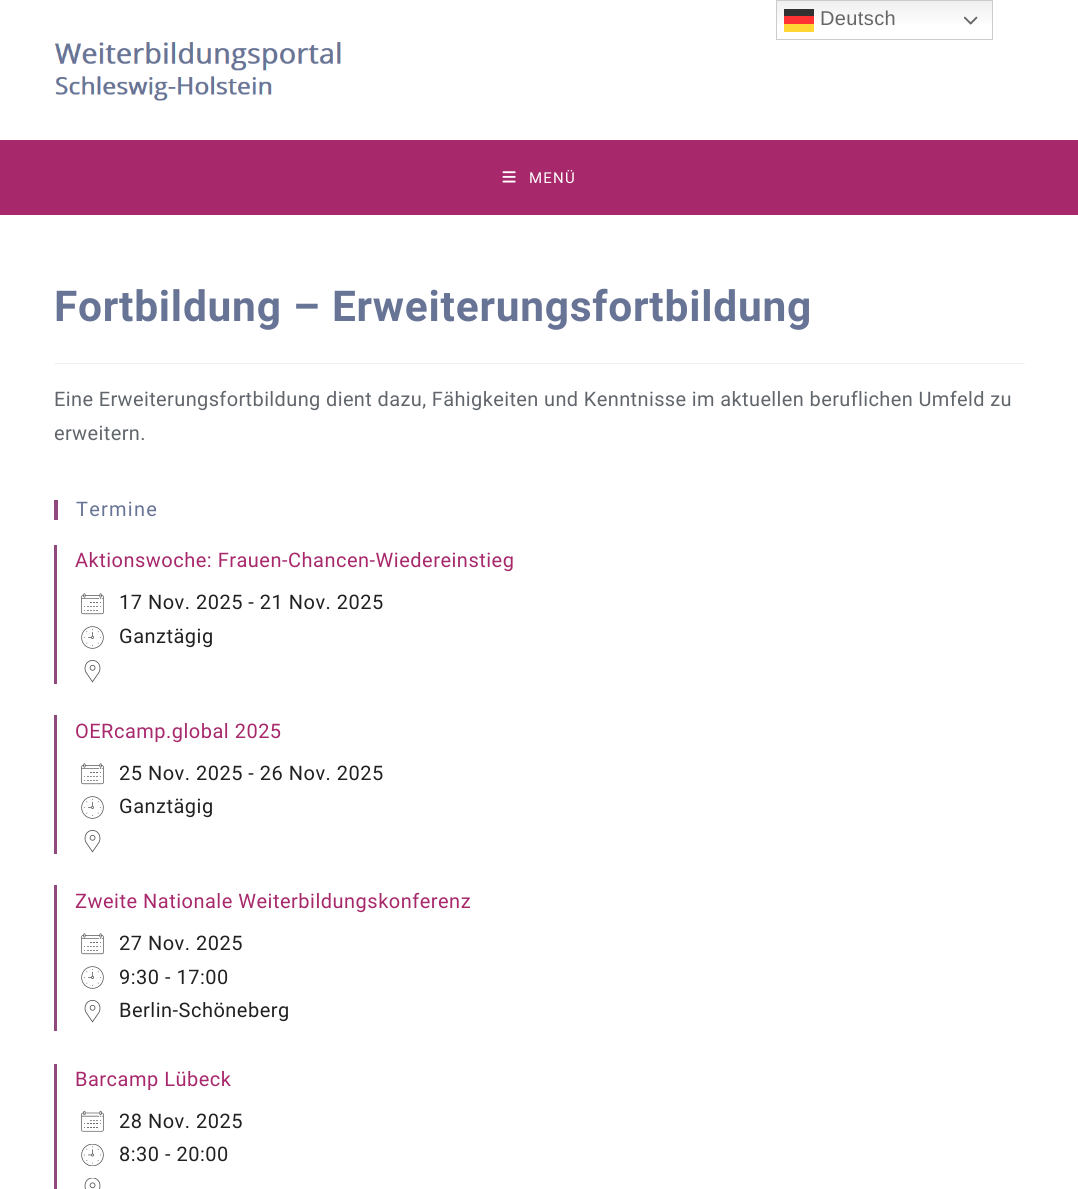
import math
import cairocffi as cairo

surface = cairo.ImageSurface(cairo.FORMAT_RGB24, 1078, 1189)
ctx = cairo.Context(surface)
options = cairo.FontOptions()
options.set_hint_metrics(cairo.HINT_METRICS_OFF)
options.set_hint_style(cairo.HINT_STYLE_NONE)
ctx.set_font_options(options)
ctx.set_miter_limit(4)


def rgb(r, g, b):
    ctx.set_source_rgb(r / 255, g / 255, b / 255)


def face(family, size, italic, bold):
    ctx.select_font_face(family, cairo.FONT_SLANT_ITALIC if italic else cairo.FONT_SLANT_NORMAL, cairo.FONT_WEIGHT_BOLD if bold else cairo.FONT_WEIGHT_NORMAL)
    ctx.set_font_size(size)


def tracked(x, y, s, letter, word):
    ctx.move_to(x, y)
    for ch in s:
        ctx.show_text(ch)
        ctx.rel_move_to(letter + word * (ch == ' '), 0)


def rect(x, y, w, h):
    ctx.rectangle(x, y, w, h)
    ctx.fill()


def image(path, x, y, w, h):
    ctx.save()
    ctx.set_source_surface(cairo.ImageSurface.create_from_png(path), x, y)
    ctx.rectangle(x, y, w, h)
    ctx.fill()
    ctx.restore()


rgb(255, 255, 255)
ctx.paint()
gradient = cairo.LinearGradient(884, 0, 884, 40)
gradient.add_color_stop_rgba(0, 0.937, 0.937, 0.937, 1)
gradient.add_color_stop_rgba(0.7, 1, 1, 1, 1)
ctx.set_source(gradient)
rect(777, 1, 215, 23)
gradient = cairo.LinearGradient(884, 0, 884, 40)
gradient.add_color_stop_rgba(0, 0.988, 0.188, 0.188, 1)
gradient.add_color_stop_rgba(0.7, 1, 0.2, 0.2, 1)
ctx.set_source(gradient)
rect(784, 16, 30, 8)
gradient = cairo.LinearGradient(884, 0, 884, 40)
gradient.add_color_stop_rgba(0, 0.188, 0.188, 0.188, 1)
gradient.add_color_stop_rgba(0.7, 0.2, 0.2, 0.2, 1)
ctx.set_source(gradient)
rect(784, 9, 30, 7)
ctx.rectangle(776.5, 0.5, 216, 39)
rgb(204, 204, 204)
ctx.set_line_width(1)
ctx.stroke()
face('Liberation Sans', 20, 0, 0)
rgb(102, 102, 102)
tracked(820, 25, 'Deutsch', 0.38, 0)
image('image0.png', 964, 16, 14, 9)
rgb(255, 214, 51)
rect(784, 24, 30, 8)
image('image1.png', 54, 42, 287, 59)
rgb(167, 40, 107)
rect(0, 140, 1078, 75)
image('image2.png', 502, 171, 14, 12)
face('Roboto', 15, 0, 0)
rgb(255, 255, 255)
tracked(529, 183, 'MENÜ', 1.25, 0)
rgb(241, 241, 241)
rect(54, 363, 971, 1)
face('Roboto', 42.5, 0, 1)
rgb(104, 116, 150)
tracked(54, 321, 'Fortbildung – Erweiterungsfortbildung', 0.75, 0)
face('Roboto', 20, 0, 0)
rgb(97, 102, 108)
tracked(54, 406, 'Eine Erweiterungsfortbildung dient dazu, Fähigkeiten und Kenntnisse im aktuellen beruflichen Umfeld zu', 0.38, 0)
tracked(54, 440, 'erweitern.', 0.38, 0)
rgb(143, 73, 125)
rect(54, 500, 4, 20)
rgb(104, 116, 150)
tracked(76, 516, 'Termine', 1.25, 0)
rgb(143, 73, 125)
rect(54, 545, 3, 139)
rgb(167, 40, 107)
tracked(75, 567, 'Aktionswoche: Frauen-Chancen-Wiedereinstieg', 0.5, 0)
image('image3.png', 81, 593, 23, 22)
rgb(33, 33, 33)
tracked(119, 609, '17 Nov. 2025 - 21 Nov. 2025', 0.5, 0)
image('image4.png', 81, 626, 23, 23)
tracked(119, 643, 'Ganztägig', 0.5, 0)
image('image5.png', 84, 660, 17, 23)
rgb(143, 73, 125)
rect(54, 715, 3, 139)
rgb(167, 40, 107)
tracked(75, 738, 'OERcamp.global 2025', 0.5, 0)
image('image3.png', 81, 763, 23, 22)
rgb(33, 33, 33)
tracked(119, 780, '25 Nov. 2025 - 26 Nov. 2025', 0.5, 0)
image('image4.png', 81, 796, 23, 23)
tracked(119, 813, 'Ganztägig', 0.5, 0)
image('image5.png', 84, 830, 17, 23)
rgb(143, 73, 125)
rect(54, 885, 3, 146)
rgb(167, 40, 107)
tracked(75, 908, 'Zweite Nationale Weiterbildungskonferenz', 0.5, 0)
image('image3.png', 81, 933, 23, 22)
rgb(33, 33, 33)
tracked(119, 950, '27 Nov. 2025', 0.5, 0)
image('image4.png', 81, 966, 23, 23)
tracked(119, 984, '9:30 - 17:00', 0.5, 0)
image('image5.png', 84, 1000, 17, 23)
tracked(119, 1017, 'Berlin-Schöneberg', 0.5, 0)
rgb(143, 73, 125)
rect(54, 1064, 3, 125)
rgb(167, 40, 107)
tracked(75, 1086, 'Barcamp Lübeck', 0.5, 0)
image('image6.png', 81, 1110, 23, 22)
rgb(33, 33, 33)
tracked(119, 1128, '28 Nov. 2025', 0.5, 0)
image('image7.png', 81, 1144, 23, 22)
tracked(119, 1161, '8:30 - 20:00', 0.5, 0)
image('image8.png', 84, 1178, 17, 11)
surface.write_to_png('render.png')
